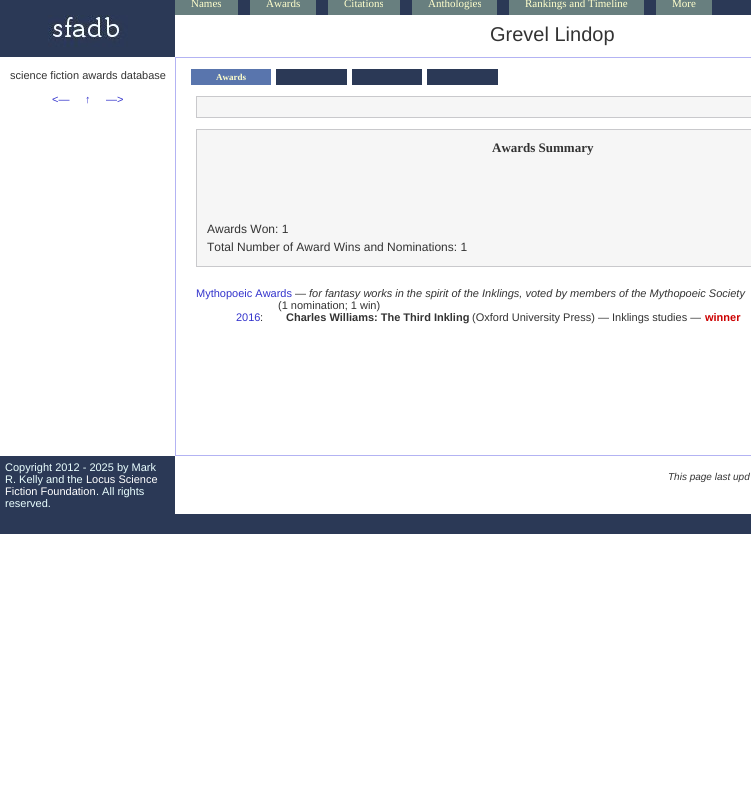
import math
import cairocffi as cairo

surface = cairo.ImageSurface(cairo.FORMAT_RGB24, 751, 810)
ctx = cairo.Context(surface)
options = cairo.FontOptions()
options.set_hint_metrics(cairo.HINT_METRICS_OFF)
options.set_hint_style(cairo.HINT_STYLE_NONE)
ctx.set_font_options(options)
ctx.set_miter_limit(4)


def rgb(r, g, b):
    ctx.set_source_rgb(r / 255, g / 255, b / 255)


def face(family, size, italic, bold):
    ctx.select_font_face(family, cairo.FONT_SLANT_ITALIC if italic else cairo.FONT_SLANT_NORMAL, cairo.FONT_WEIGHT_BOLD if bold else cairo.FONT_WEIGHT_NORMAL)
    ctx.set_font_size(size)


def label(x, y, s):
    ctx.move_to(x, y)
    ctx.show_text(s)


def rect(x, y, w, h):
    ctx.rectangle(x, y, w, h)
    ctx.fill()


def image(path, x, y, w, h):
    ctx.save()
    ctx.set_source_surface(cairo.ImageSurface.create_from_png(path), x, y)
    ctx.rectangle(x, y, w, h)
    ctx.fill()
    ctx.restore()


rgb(255, 255, 255)
ctx.paint()
rgb(43, 57, 86)
rect(0, 514, 751, 20)
rect(0, 0, 751, 15)
rgb(104, 127, 127)
rect(175, 0, 63, 15)
face('Liberation Serif', 11, 0, 0)
rgb(255, 255, 204)
label(191, 7, 'Names')
rgb(104, 127, 127)
rect(250, 0, 66, 15)
rgb(255, 255, 204)
label(266, 7, 'Awards')
rgb(104, 127, 127)
rect(328, 0, 72, 15)
rgb(255, 255, 204)
label(344, 7, 'Citations')
rgb(104, 127, 127)
rect(412, 0, 85, 15)
rgb(255, 255, 204)
label(428, 7, 'Anthologies')
rgb(104, 127, 127)
rect(509, 0, 135, 15)
rgb(255, 255, 204)
label(525, 7, 'Rankings and Timeline')
rgb(104, 127, 127)
rect(656, 0, 56, 15)
rgb(255, 255, 204)
label(672, 7, 'More')
image('image0.png', 0, 15, 175, 42)
face('Liberation Sans', 20, 0, 0)
rgb(51, 51, 51)
label(490, 41, 'Grevel Lindop')
face('Liberation Sans', 11, 0, 0)
label(10, 79, 'science fiction awards database')
rgb(51, 51, 204)
label(52, 103, '<—')
label(85, 103, '↑')
label(106, 103, '—>')
ctx.rectangle(175.5, 57.5, 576, 398)
rgb(179, 179, 243)
ctx.set_line_width(1)
ctx.stroke()
rgb(89, 117, 173)
rect(191, 69, 80, 16)
face('Liberation Serif', 9, 0, 1)
rgb(255, 255, 204)
label(216, 80, 'Awards')
rgb(43, 57, 86)
rect(276, 69, 71, 16)
rect(352, 69, 70, 16)
rect(427, 69, 71, 16)
rgb(246, 246, 246)
ctx.rectangle(196.5, 96.5, 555, 21)
ctx.fill_preserve()
rgb(201, 201, 204)
ctx.stroke()
rgb(246, 246, 246)
ctx.rectangle(196.5, 129.5, 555, 137)
ctx.fill_preserve()
rgb(201, 201, 204)
ctx.stroke()
face('Liberation Serif', 13, 0, 1)
rgb(51, 51, 51)
label(492, 152, 'Awards Summary')
face('Liberation Sans', 12, 0, 0)
label(207, 233, 'Awards Won: 1')
label(207, 251, 'Total Number of Award Wins and Nominations: 1')
face('Liberation Sans', 11, 0, 0)
rgb(51, 51, 204)
label(196, 297, 'Mythopoeic Awards')
rgb(51, 51, 51)
label(295, 297, '—')
face('Liberation Sans', 11, 1, 0)
label(309, 297, 'for fantasy works in the spirit of the Inklings, voted by members of the Mythopoeic Society')
face('Liberation Sans', 11, 0, 0)
label(278, 309, '(1 nomination; 1 win)')
rgb(51, 51, 204)
label(236, 321, '2016')
rgb(51, 51, 51)
label(260, 321, ':')
face('Liberation Sans', 11, 0, 1)
label(286, 321, 'Charles Williams: The Third Inkling')
face('Liberation Sans', 11, 0, 0)
label(472, 321, '(Oxford University Press) — Inklings studies —')
face('Liberation Sans', 11, 0, 1)
rgb(204, 0, 0)
label(705, 321, 'winner')
rgb(43, 57, 86)
rect(0, 456, 175, 58)
face('Liberation Sans', 11, 0, 0)
rgb(234, 255, 255)
label(5, 471, 'Copyright 2012 - 2025 by Mark')
label(5, 483, 'R. Kelly and the')
rgb(255, 255, 255)
label(86, 483, 'Locus Science')
label(5, 495, 'Fiction Foundation')
rgb(234, 255, 255)
label(96, 495, '. All rights')
label(5, 507, 'reserved.')
face('Liberation Sans', 10, 1, 0)
rgb(51, 51, 51)
label(668, 480, 'This page last upd')
surface.write_to_png('render.png')
